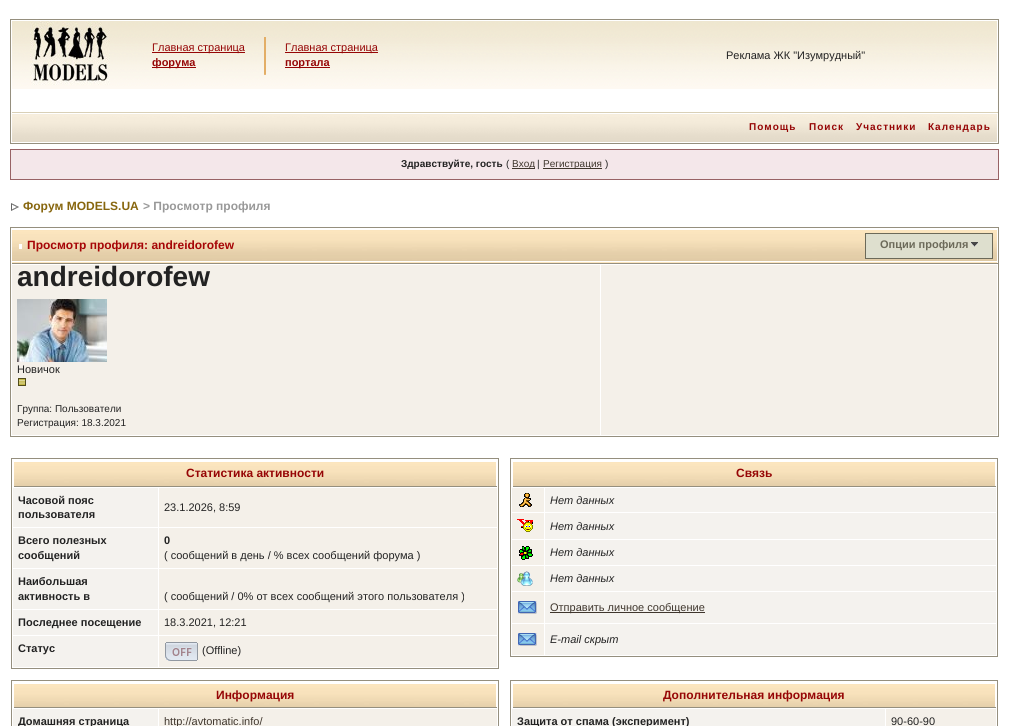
import math
import cairocffi as cairo

surface = cairo.ImageSurface(cairo.FORMAT_RGB24, 1009, 726)
ctx = cairo.Context(surface)
options = cairo.FontOptions()
options.set_hint_metrics(cairo.HINT_METRICS_OFF)
options.set_hint_style(cairo.HINT_STYLE_NONE)
ctx.set_font_options(options)
ctx.set_miter_limit(4)


def rgb(r, g, b):
    ctx.set_source_rgb(r / 255, g / 255, b / 255)


def face(family, size, italic, bold):
    ctx.select_font_face(family, cairo.FONT_SLANT_ITALIC if italic else cairo.FONT_SLANT_NORMAL, cairo.FONT_WEIGHT_BOLD if bold else cairo.FONT_WEIGHT_NORMAL)
    ctx.set_font_size(size)


def label(x, y, s):
    ctx.move_to(x, y)
    ctx.show_text(s)


def tracked(x, y, s, letter, word):
    ctx.move_to(x, y)
    for ch in s:
        ctx.show_text(ch)
        ctx.rel_move_to(letter + word * (ch == ' '), 0)


def rect(x, y, w, h):
    ctx.rectangle(x, y, w, h)
    ctx.fill()


def image(path, x, y, w, h):
    ctx.save()
    ctx.set_source_surface(cairo.ImageSurface.create_from_png(path), x, y)
    ctx.rectangle(x, y, w, h)
    ctx.fill()
    ctx.restore()


rgb(255, 255, 255)
ctx.paint()
ctx.rectangle(10.5, 19.5, 988, 124)
rgb(149, 143, 126)
ctx.set_line_width(1)
ctx.stroke()
rgb(217, 208, 183)
rect(11, 112, 987, 1)
rgb(255, 255, 255)
rect(11, 112, 1, 1)
image('image0.png', 12, 21, 714, 68)
image('image1.png', 30, 21, 80, 64)
rgb(150, 6, 6)
rect(152, 52, 93, 1)
face('Liberation Sans', 11, 0, 0)
label(152, 51, 'Главная страница')
rect(152, 67, 44, 1)
face('Liberation Sans', 11, 0, 1)
label(152, 66, 'форума')
image('image2.png', 264, 37, 2, 38)
rect(285, 52, 93, 1)
face('Liberation Sans', 11, 0, 0)
label(285, 51, 'Главная страница')
rect(285, 67, 45, 1)
face('Liberation Sans', 11, 0, 1)
label(285, 66, 'портала')
image('image3.png', 726, 21, 271, 68)
face('Liberation Sans', 11, 0, 0)
rgb(34, 34, 34)
label(726, 59, 'Реклама ЖК "Изумрудный"')
image('image4.png', 12, 114, 985, 28)
face('Liberation Sans', 10, 0, 1)
rgb(150, 6, 6)
tracked(749, 130, 'Помощь', 1, 0)
tracked(809, 130, 'Поиск', 1, 0)
tracked(856, 130, 'Участники', 1, 0)
tracked(928, 130, 'Календарь', 1, 0)
rgb(244, 231, 234)
ctx.rectangle(10.5, 149.5, 988, 30)
ctx.fill_preserve()
rgb(152, 98, 101)
ctx.stroke()
rgb(34, 34, 34)
label(401, 167, 'Здравствуйте, гость')
face('Liberation Sans', 10, 0, 0)
label(506, 167, '(')
rgb(63, 54, 45)
rect(512, 168, 23, 1)
label(512, 167, 'Вход')
rgb(34, 34, 34)
label(537, 167, '|')
rgb(63, 54, 45)
rect(543, 168, 59, 1)
label(543, 167, 'Регистрация')
rgb(34, 34, 34)
label(605, 167, ')')
image('image5.png', 11, 203, 8, 8)
face('Liberation Sans', 12, 0, 1)
rgb(135, 102, 14)
label(23, 210, 'Форум MODELS.UA')
rgb(153, 153, 153)
label(143, 210, '> Просмотр профиля')
ctx.rectangle(10.5, 227.5, 988, 209)
rgb(149, 143, 126)
ctx.stroke()
image('image6.png', 12, 229, 985, 34)
rect(11, 263, 987, 1)
rgb(255, 255, 255)
rect(11, 263, 1, 1)
rect(19, 244, 3, 5)
rgb(166, 5, 6)
label(27, 249, 'Просмотр профиля: andreidorofew')
rgb(222, 223, 206)
ctx.rectangle(865.5, 233.5, 127, 25)
ctx.fill_preserve()
rgb(108, 106, 89)
ctx.stroke()
face('Liberation Sans', 11, 0, 1)
label(880, 248, 'Опции профиля')
image('image7.png', 971, 242, 7, 5)
rgb(244, 240, 233)
rect(12, 265, 588, 170)
face('Liberation Sans', 28, 0, 1)
rgb(34, 34, 34)
label(17, 286, 'andreidorofew')
image('image8.png', 17, 299, 90, 63)
face('Liberation Sans', 11, 0, 0)
label(17, 373, 'Новичок')
image('image9.png', 18, 378, 8, 8)
face('Liberation Sans', 10, 0, 0)
label(17, 412, 'Группа: Пользователи')
label(17, 426, 'Регистрация: 18.3.2021')
rgb(244, 240, 233)
rect(601, 265, 396, 170)
ctx.rectangle(11.5, 458.5, 487, 210)
rgb(149, 143, 126)
ctx.stroke()
image('image10.png', 14, 461, 482, 25)
rect(13, 486, 484, 1)
rgb(255, 255, 255)
rect(13, 486, 1, 1)
face('Liberation Sans', 12, 0, 1)
rgb(150, 6, 6)
label(186, 477, 'Статистика активности')
rgb(244, 242, 238)
rect(13, 488, 145, 39)
face('Liberation Sans', 11, 0, 1)
rgb(34, 34, 34)
label(18, 504, 'Часовой пояс')
label(18, 518, 'пользователя')
rgb(244, 240, 233)
rect(159, 488, 338, 39)
face('Liberation Sans', 11, 0, 0)
rgb(34, 34, 34)
label(164, 511, '23.1.2026, 8:59')
rgb(244, 242, 238)
rect(13, 528, 145, 40)
face('Liberation Sans', 11, 0, 1)
rgb(34, 34, 34)
label(18, 544, 'Всего полезных')
label(18, 559, 'сообщений')
rgb(244, 240, 233)
rect(159, 528, 338, 40)
rgb(34, 34, 34)
label(164, 544, '0')
face('Liberation Sans', 11, 0, 0)
label(164, 559, '( сообщений в день / % всех сообщений форума )')
rgb(244, 242, 238)
rect(13, 569, 145, 40)
face('Liberation Sans', 11, 0, 1)
rgb(34, 34, 34)
label(18, 585, 'Наибольшая')
label(18, 600, 'активность в')
rgb(244, 240, 233)
rect(159, 569, 338, 40)
face('Liberation Sans', 11, 0, 0)
rgb(34, 34, 34)
label(164, 600, '( сообщений / 0% от всех сообщений этого пользователя )')
rgb(244, 242, 238)
rect(13, 610, 145, 25)
face('Liberation Sans', 11, 0, 1)
rgb(34, 34, 34)
label(18, 626, 'Последнее посещение')
rgb(244, 240, 233)
rect(159, 610, 338, 25)
face('Liberation Sans', 11, 0, 0)
rgb(34, 34, 34)
label(164, 626, '18.3.2021, 12:21')
rgb(244, 242, 238)
rect(13, 636, 145, 31)
face('Liberation Sans', 11, 0, 1)
rgb(34, 34, 34)
label(18, 652, 'Статус')
rgb(244, 240, 233)
rect(159, 636, 338, 31)
image('image11.png', 165, 642, 33, 19)
face('Liberation Sans', 11, 0, 0)
rgb(34, 34, 34)
label(202, 654, '(Offline)')
ctx.rectangle(510.5, 458.5, 487, 198)
rgb(149, 143, 126)
ctx.stroke()
image('image10.png', 513, 461, 482, 25)
rect(512, 486, 484, 1)
rgb(255, 255, 255)
rect(512, 486, 1, 1)
face('Liberation Sans', 12, 0, 1)
rgb(150, 6, 6)
label(736, 477, 'Связь')
rgb(244, 240, 233)
rect(512, 488, 32, 24)
image('image12.png', 519, 493, 13, 14)
rgb(244, 242, 238)
rect(545, 488, 451, 24)
face('Liberation Sans', 11, 1, 0)
rgb(34, 34, 34)
label(550, 504, 'Нет данных')
rgb(244, 240, 233)
rect(512, 513, 32, 26)
image('image13.png', 517, 519, 16, 13)
rgb(244, 242, 238)
rect(545, 513, 451, 26)
rgb(34, 34, 34)
label(550, 530, 'Нет данных')
rgb(244, 240, 233)
rect(512, 540, 32, 25)
image('image14.png', 519, 546, 14, 14)
rgb(244, 242, 238)
rect(545, 540, 451, 25)
rgb(34, 34, 34)
label(550, 556, 'Нет данных')
rgb(244, 240, 233)
rect(512, 566, 32, 25)
image('image15.png', 517, 571, 16, 15)
rgb(244, 242, 238)
rect(545, 566, 451, 25)
rgb(34, 34, 34)
label(550, 582, 'Нет данных')
rgb(244, 240, 233)
rect(512, 592, 32, 31)
image('image16.png', 518, 601, 19, 13)
rgb(244, 242, 238)
rect(545, 592, 451, 31)
rgb(63, 54, 45)
rect(550, 612, 155, 1)
face('Liberation Sans', 11, 0, 0)
label(550, 611, 'Отправить личное сообщение')
rgb(244, 240, 233)
rect(512, 624, 32, 31)
image('image16.png', 518, 633, 19, 13)
rgb(244, 242, 238)
rect(545, 624, 451, 31)
face('Liberation Sans', 11, 1, 0)
rgb(34, 34, 34)
label(550, 643, 'E-mail скрыт')
ctx.rectangle(11.5, 680.5, 487, 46)
rgb(149, 143, 126)
ctx.stroke()
image('image17.png', 14, 683, 482, 24)
rect(13, 707, 484, 1)
rgb(255, 255, 255)
rect(13, 707, 1, 1)
face('Liberation Sans', 12, 0, 1)
rgb(150, 6, 6)
label(216, 699, 'Информация')
rgb(244, 242, 238)
rect(13, 709, 145, 17)
face('Liberation Sans', 11, 0, 1)
rgb(34, 34, 34)
label(18, 725, 'Домашняя страница')
rgb(244, 240, 233)
rect(159, 709, 338, 17)
face('Liberation Sans', 11, 0, 0)
rgb(63, 54, 45)
label(164, 725, 'http://avtomatic.info/')
ctx.rectangle(510.5, 680.5, 487, 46)
rgb(149, 143, 126)
ctx.stroke()
image('image17.png', 513, 683, 482, 24)
rect(512, 707, 484, 1)
rgb(255, 255, 255)
rect(512, 707, 1, 1)
face('Liberation Sans', 12, 0, 1)
rgb(150, 6, 6)
label(663, 699, 'Дополнительная информация')
rgb(244, 242, 238)
rect(512, 709, 373, 17)
face('Liberation Sans', 11, 0, 1)
rgb(34, 34, 34)
label(517, 725, 'Защита от спама (эксперимент)')
rgb(244, 240, 233)
rect(886, 709, 110, 17)
face('Liberation Sans', 11, 0, 0)
rgb(34, 34, 34)
label(891, 725, '90-60-90')
surface.write_to_png('render.png')
